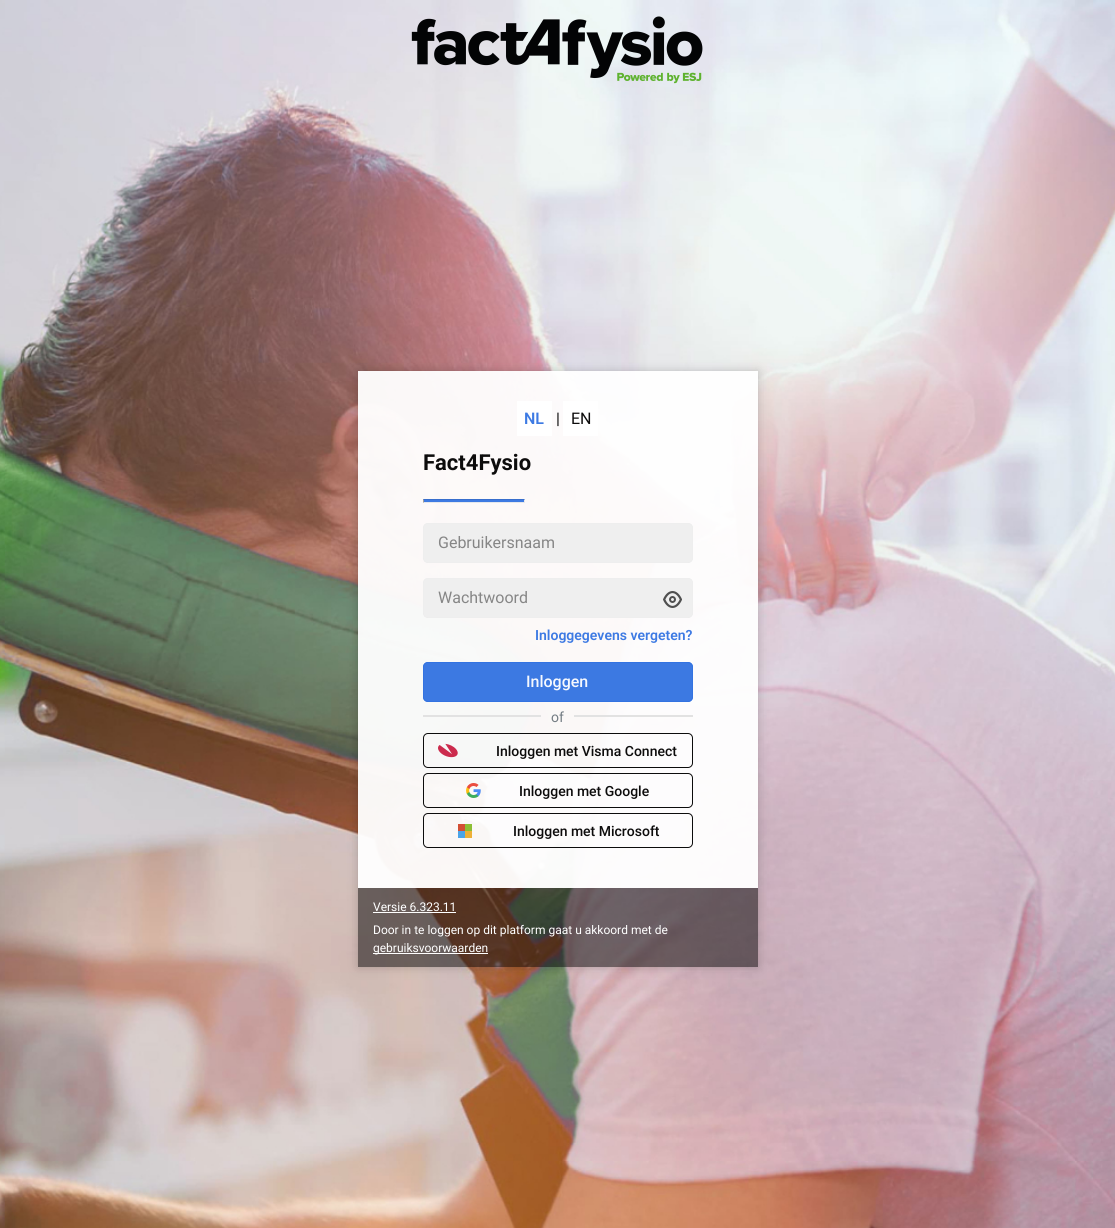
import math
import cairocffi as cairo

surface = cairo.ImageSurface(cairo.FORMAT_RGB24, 1115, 1228)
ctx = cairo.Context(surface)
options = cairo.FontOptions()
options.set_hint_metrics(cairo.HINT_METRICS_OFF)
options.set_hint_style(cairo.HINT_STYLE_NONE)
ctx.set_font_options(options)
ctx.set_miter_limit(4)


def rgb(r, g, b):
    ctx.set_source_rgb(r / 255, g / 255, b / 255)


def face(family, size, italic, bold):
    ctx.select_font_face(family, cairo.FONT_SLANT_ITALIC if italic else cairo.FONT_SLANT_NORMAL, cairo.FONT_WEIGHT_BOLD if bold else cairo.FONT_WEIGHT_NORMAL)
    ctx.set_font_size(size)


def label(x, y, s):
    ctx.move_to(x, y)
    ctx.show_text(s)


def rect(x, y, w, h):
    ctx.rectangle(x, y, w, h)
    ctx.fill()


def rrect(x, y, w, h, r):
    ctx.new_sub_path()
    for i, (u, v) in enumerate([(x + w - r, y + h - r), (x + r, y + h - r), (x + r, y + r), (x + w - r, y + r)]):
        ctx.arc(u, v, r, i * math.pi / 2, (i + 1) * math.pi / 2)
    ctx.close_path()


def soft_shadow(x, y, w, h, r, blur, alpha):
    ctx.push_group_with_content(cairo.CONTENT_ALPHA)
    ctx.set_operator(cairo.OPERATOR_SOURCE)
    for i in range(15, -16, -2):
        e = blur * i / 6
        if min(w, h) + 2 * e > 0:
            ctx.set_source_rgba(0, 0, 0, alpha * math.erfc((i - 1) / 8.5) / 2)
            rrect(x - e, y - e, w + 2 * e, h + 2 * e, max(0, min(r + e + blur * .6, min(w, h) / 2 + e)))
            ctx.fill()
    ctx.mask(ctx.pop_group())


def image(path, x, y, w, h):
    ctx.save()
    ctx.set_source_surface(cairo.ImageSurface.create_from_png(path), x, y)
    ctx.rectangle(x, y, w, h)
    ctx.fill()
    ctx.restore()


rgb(255, 255, 255)
ctx.paint()
image('image0.png', 0, 0, 1115, 1228)
image('image1.png', 411, 16, 292, 68)
ctx.save()
ctx.set_fill_rule(cairo.FILL_RULE_EVEN_ODD)
ctx.new_path()
ctx.move_to(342, 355)
ctx.line_to(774, 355)
ctx.line_to(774, 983)
ctx.line_to(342, 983)
ctx.close_path()
ctx.move_to(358, 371)
ctx.line_to(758, 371)
ctx.line_to(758, 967)
ctx.line_to(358, 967)
ctx.close_path()
ctx.clip()
rgb(0, 0, 0)
soft_shadow(358, 371, 400, 596, 0, 5, 0.2)
ctx.restore()
ctx.set_source_rgba(1, 1, 1, 0.95)
rect(358, 371, 400, 517)
rgb(255, 255, 255)
rect(517, 401, 35, 35)
face('Roboto SemiBold', 16, 0, 0)
rgb(61, 122, 227)
label(524, 424, 'NL')
face('Roboto', 16, 0, 0)
rgb(13, 12, 12)
label(556, 424, '|')
ctx.set_source_rgba(1, 1, 1, 0.95)
rect(563, 401, 35, 35)
rgb(13, 12, 12)
label(571, 424, 'EN')
face('Roboto', 22, 0, 1)
label(423, 470, 'Fact4Fysio')
rgb(61, 122, 226)
rect(423, 499, 102, 4)
rgb(55, 110, 205)
ctx.new_path()
ctx.move_to(423, 499)
ctx.line_to(525, 499)
ctx.line_to(524, 500)
ctx.line_to(424, 500)
ctx.close_path()
ctx.fill()
rgb(236, 233, 232)
ctx.new_path()
ctx.move_to(525, 499)
ctx.line_to(525, 503)
ctx.line_to(524, 502)
ctx.line_to(524, 500)
ctx.close_path()
ctx.fill()
ctx.set_source_rgba(0.933, 0.933, 0.933, 0.95)
rect(423, 502, 102, 1)
rgb(161, 158, 157)
ctx.new_path()
ctx.move_to(423, 503)
ctx.line_to(423, 499)
ctx.line_to(424, 500)
ctx.line_to(424, 502)
ctx.close_path()
ctx.fill()
ctx.set_source_rgba(0.937, 0.937, 0.937, 0.95)
rrect(423, 523, 270, 40, 5)
ctx.fill()
rrect(423.5, 523.5, 269, 39, 4.5)
ctx.set_line_width(1)
ctx.stroke()
face('Roboto', 16, 0, 0)
rgb(134, 134, 134)
label(438, 548, 'Gebruikersnaam')
ctx.set_source_rgba(0.937, 0.937, 0.937, 0.95)
rrect(423, 578, 270, 40, 5)
ctx.fill()
rrect(423.5, 578.5, 269, 39, 4.5)
ctx.stroke()
rgb(134, 134, 134)
label(438, 603, 'Wachtwoord')
image('image2.png', 663, 591, 19, 17)
face('Roboto SemiBold', 14, 0, 0)
rgb(61, 122, 227)
label(535, 640, 'Inloggegevens vergeten?')
ctx.set_source_rgba(0.2, 0.451, 0.882, 0.95)
rrect(423, 662, 270, 40, 5)
ctx.fill()
rrect(423.5, 662.5, 269, 39, 4.5)
ctx.stroke()
face('Roboto Medium', 16, 0, 0)
rgb(245, 248, 254)
label(526, 687, 'Inloggen')
ctx.set_source_rgba(0.882, 0.882, 0.882, 0.95)
rect(423, 715, 118, 2)
face('Roboto', 14, 0, 0)
rgb(115, 124, 131)
label(551, 722, 'of')
ctx.set_source_rgba(0.882, 0.882, 0.882, 0.95)
rect(574, 715, 119, 2)
rrect(423.5, 733.5, 269, 34, 4.5)
ctx.set_source_rgba(0, 0, 0, 0.95)
ctx.stroke()
image('image3.png', 438, 743, 20, 15)
face('Roboto Medium', 14, 0, 0)
rgb(13, 12, 12)
label(496, 756, 'Inloggen met Visma Connect')
rrect(423.5, 773.5, 269, 34, 4.5)
ctx.set_source_rgba(0, 0, 0, 0.95)
ctx.stroke()
image('image4.png', 466, 783, 15, 15)
rgb(13, 12, 12)
label(519, 796, 'Inloggen met Google')
rrect(423.5, 813.5, 269, 34, 4.5)
ctx.set_source_rgba(0, 0, 0, 0.95)
ctx.stroke()
image('image5.png', 458, 824, 14, 14)
rgb(13, 12, 12)
label(513, 836, 'Inloggen met Microsoft')
ctx.set_source_rgba(0, 0, 0, 0.5)
rect(358, 888, 400, 79)
face('Roboto', 12, 0, 0)
rgb(255, 255, 255)
label(373, 911, 'Versie 6.323.11')
rect(373, 912, 83, 1)
label(373, 934, 'Door in te loggen op dit platform gaat u akkoord met de')
rect(373, 953, 115, 1)
label(373, 952, 'gebruiksvoorwaarden')
surface.write_to_png('render.png')
